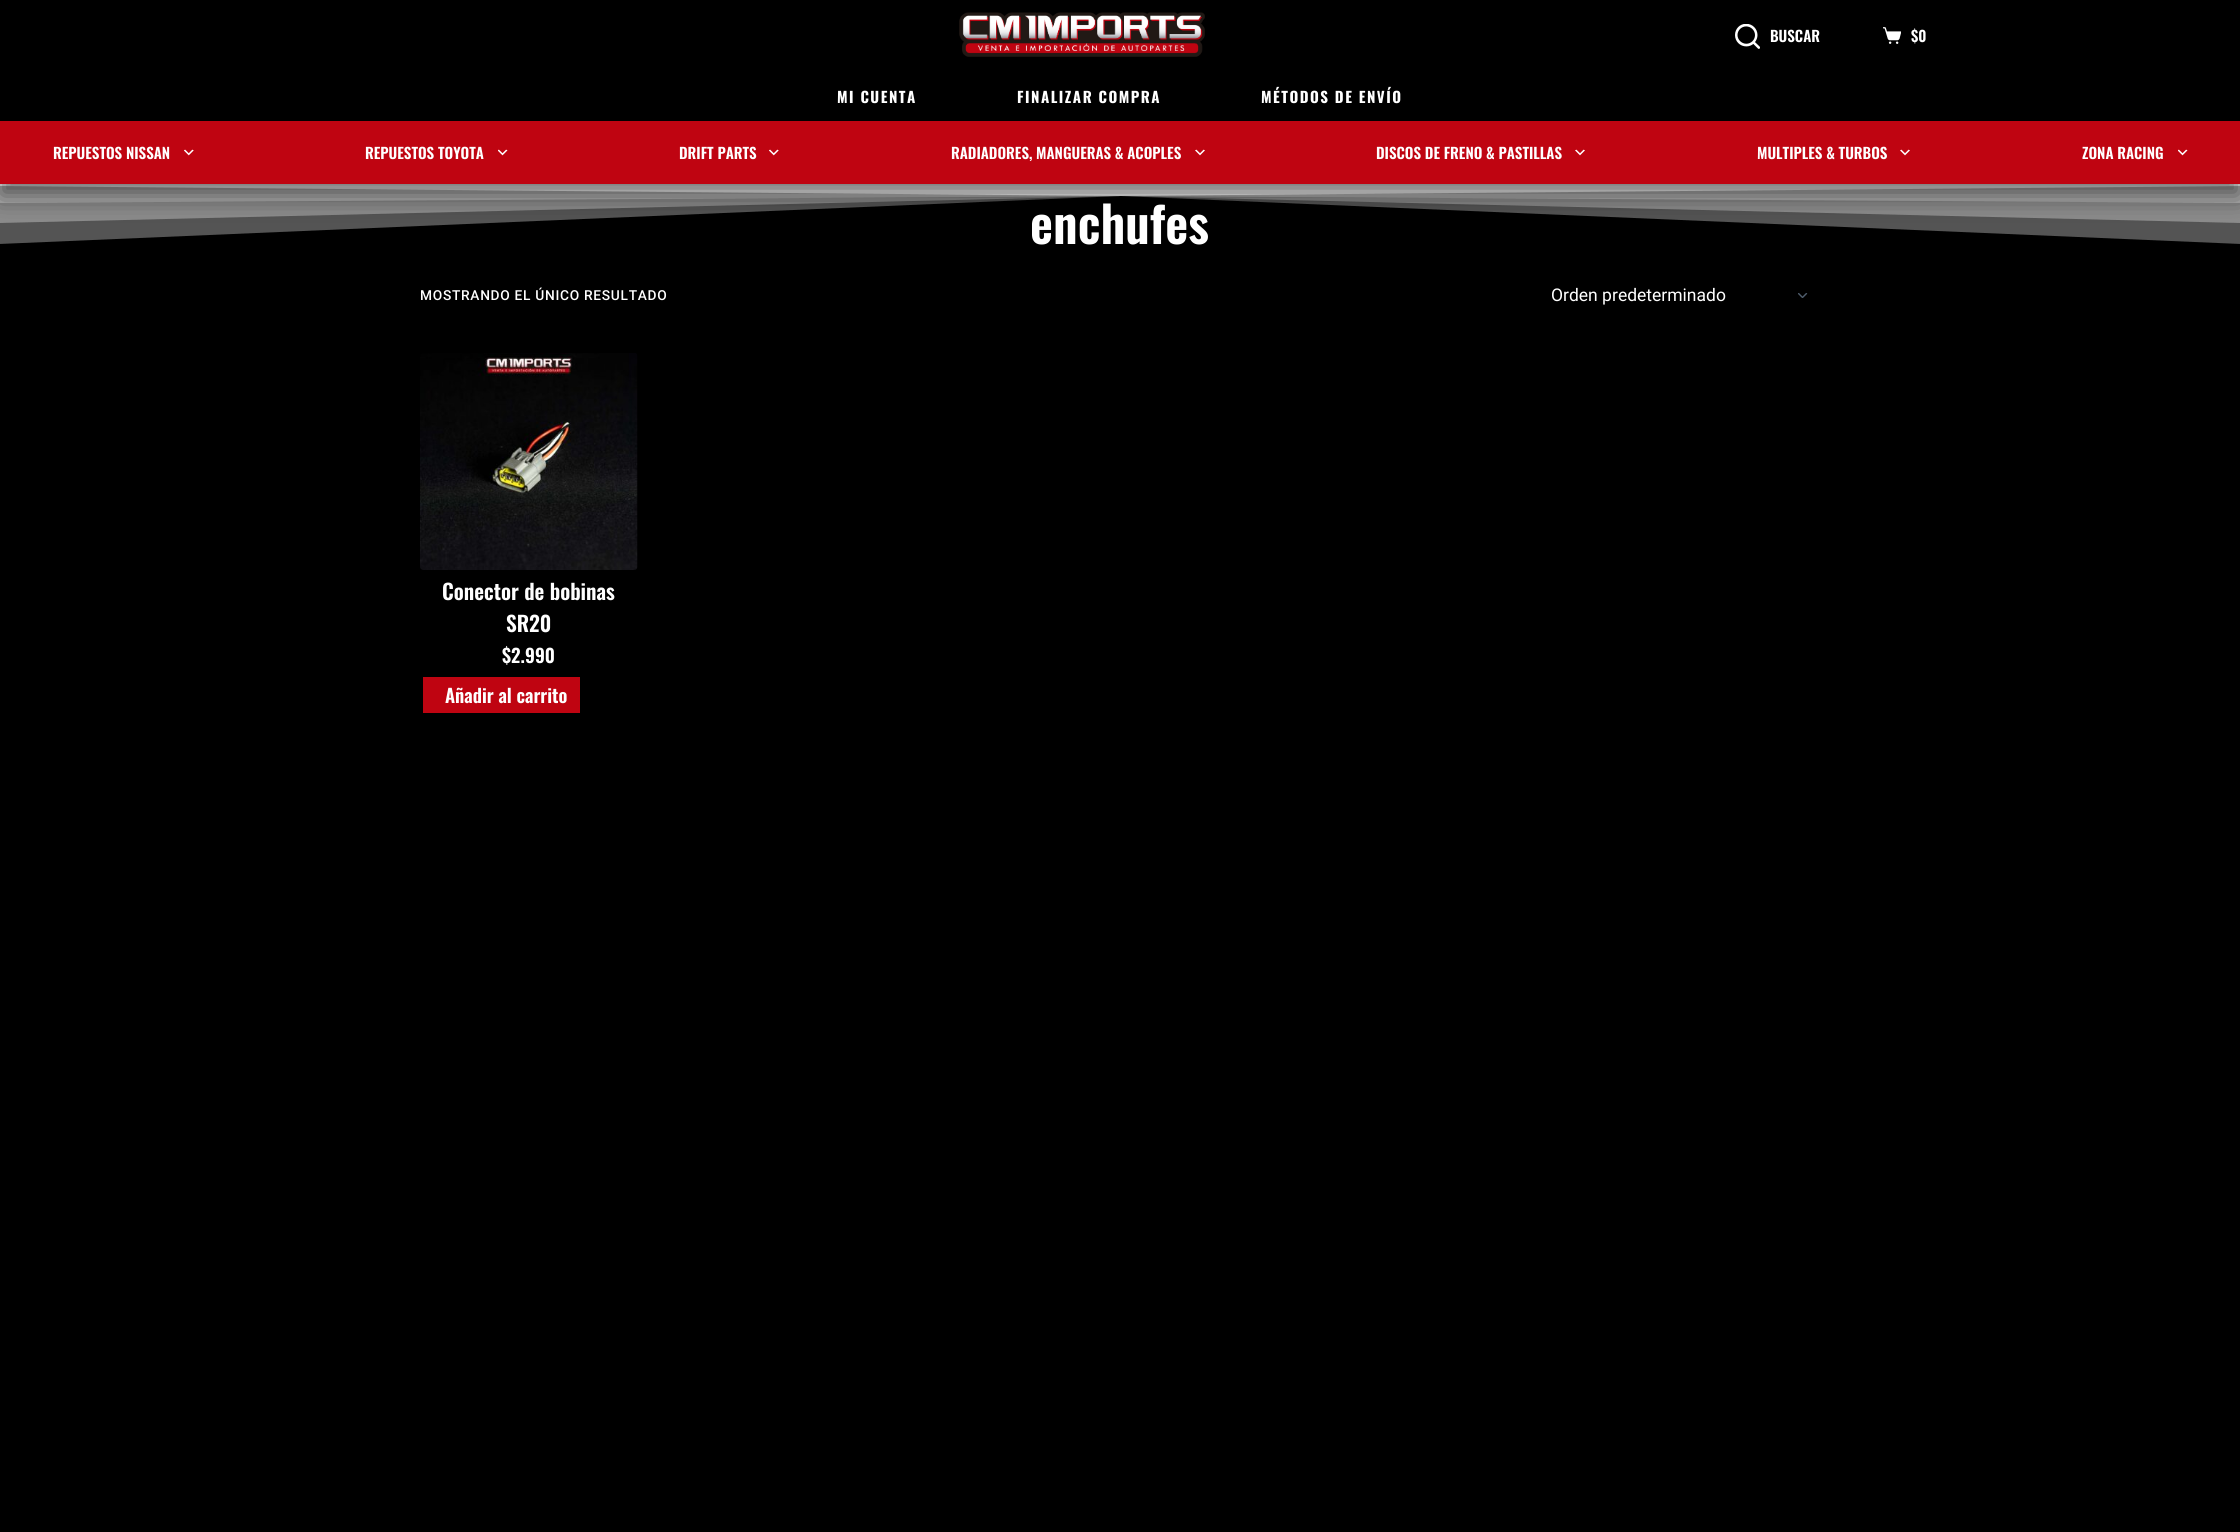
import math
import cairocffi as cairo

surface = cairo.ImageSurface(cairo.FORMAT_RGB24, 2240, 1532)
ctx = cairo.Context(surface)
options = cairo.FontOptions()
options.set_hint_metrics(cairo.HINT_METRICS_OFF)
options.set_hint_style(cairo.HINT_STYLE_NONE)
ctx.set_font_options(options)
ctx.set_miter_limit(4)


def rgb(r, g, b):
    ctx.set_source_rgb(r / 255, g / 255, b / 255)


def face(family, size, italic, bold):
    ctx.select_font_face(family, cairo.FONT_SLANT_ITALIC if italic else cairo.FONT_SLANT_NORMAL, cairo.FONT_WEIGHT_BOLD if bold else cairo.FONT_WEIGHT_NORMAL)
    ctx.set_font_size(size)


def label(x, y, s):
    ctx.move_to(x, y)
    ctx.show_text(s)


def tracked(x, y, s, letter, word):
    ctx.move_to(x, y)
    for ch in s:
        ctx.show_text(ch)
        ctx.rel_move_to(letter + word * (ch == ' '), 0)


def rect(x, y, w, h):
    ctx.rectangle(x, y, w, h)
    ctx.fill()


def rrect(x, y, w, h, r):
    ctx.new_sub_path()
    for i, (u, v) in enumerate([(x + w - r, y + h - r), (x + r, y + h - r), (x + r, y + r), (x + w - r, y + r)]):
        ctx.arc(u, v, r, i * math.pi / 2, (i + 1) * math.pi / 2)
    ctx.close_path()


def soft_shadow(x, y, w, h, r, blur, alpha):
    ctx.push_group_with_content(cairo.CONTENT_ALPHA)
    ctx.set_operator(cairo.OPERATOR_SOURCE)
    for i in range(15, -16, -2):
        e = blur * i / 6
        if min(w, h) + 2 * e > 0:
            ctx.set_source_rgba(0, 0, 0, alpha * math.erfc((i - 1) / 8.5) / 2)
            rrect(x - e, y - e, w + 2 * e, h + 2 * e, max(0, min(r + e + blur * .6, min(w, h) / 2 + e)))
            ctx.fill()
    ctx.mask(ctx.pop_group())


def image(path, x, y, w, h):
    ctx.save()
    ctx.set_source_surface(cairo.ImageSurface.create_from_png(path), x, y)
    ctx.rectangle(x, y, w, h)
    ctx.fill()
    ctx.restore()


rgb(0, 0, 0)
ctx.paint()
image('image0.png', 959, 12, 246, 45)
image('image1.png', 1735, 24, 25, 25)
face('Oswald SemiBold', 15, 0, 0)
rgb(255, 255, 255)
label(1770, 42, 'BUSCAR')
image('image2.png', 1883, 27, 18, 17)
label(1911, 42, '$0')
rgb(84, 84, 84)
ctx.new_path()
ctx.move_to(-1, 182)
ctx.line_to(-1, 244)
ctx.line_to(1120, 196)
ctx.line_to(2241, 244)
ctx.line_to(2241, 182)
ctx.close_path()
ctx.fill()
ctx.set_source_rgba(1, 1, 1, 0.33)
ctx.new_path()
ctx.move_to(-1, 182)
ctx.line_to(-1, 223)
ctx.line_to(1120, 196)
ctx.line_to(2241, 223)
ctx.line_to(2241, 182)
ctx.close_path()
ctx.fill()
rgb(178, 178, 178)
ctx.new_path()
ctx.move_to(-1, 182)
ctx.line_to(-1, 203)
ctx.line_to(1120, 196)
ctx.line_to(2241, 203)
ctx.line_to(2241, 182)
ctx.close_path()
ctx.fill()
rgb(255, 255, 255)
ctx.new_path()
ctx.move_to(-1, 182)
ctx.line_to(-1, 186)
ctx.line_to(1120, 196)
ctx.line_to(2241, 186)
ctx.line_to(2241, 182)
ctx.close_path()
ctx.fill()
rgb(0, 0, 0)
soft_shadow(0, 134, 2240, 62, 0, 12.5, 0.57)
face('Oswald', 15, 0, 1)
rgb(255, 255, 255)
tracked(837, 103, 'MI CUENTA', 1.5, 0)
tracked(1017, 103, 'FINALIZAR COMPRA', 1.5, 0)
tracked(1261, 103, 'MÉTODOS DE ENVÍO', 1.5, 0)
rgb(191, 4, 17)
rect(0, 121, 2240, 63)
face('Oswald SemiBold', 15, 0, 0)
rgb(255, 255, 255)
label(53, 159, 'REPUESTOS NISSAN')
image('image3.png', 184, 149, 10, 7)
label(365, 159, 'REPUESTOS TOYOTA')
image('image4.png', 498, 149, 10, 7)
label(679, 159, 'DRIFT PARTS')
image('image3.png', 769, 149, 10, 7)
label(951, 159, 'RADIADORES, MANGUERAS & ACOPLES')
image('image5.png', 1195, 149, 10, 7)
label(1376, 159, 'DISCOS DE FRENO & PASTILLAS')
image('image5.png', 1575, 149, 10, 7)
label(1757, 159, 'MULTIPLES & TURBOS')
image('image5.png', 1900, 149, 10, 7)
label(2082, 159, 'ZONA RACING')
image('image4.png', 2178, 149, 10, 7)
face('Oswald SemiBold', 50, 0, 0)
label(1030, 244, 'enchufes')
face('Roboto Medium', 13.75, 0, 0)
tracked(420, 300, 'MOSTRANDO EL ÚNICO RESULTADO', 0.7, 0)
image('image6.png', 1798, 293, 10, 5)
face('Roboto', 17.5, 0, 0)
label(1551, 301, 'Orden predeterminado')
image('image7.png', 420, 353, 218, 217)
face('Oswald SemiBold', 21.25, 0, 0)
label(442, 600, 'Conector de bobinas')
label(506, 632, 'SR20')
face('Oswald SemiBold', 18.75, 0, 0)
label(502, 663, '$2.990')
rgb(191, 4, 17)
rect(423, 677, 157, 36)
rgb(255, 255, 255)
label(445, 703, 'Añadir al carrito')
surface.write_to_png('render.png')
